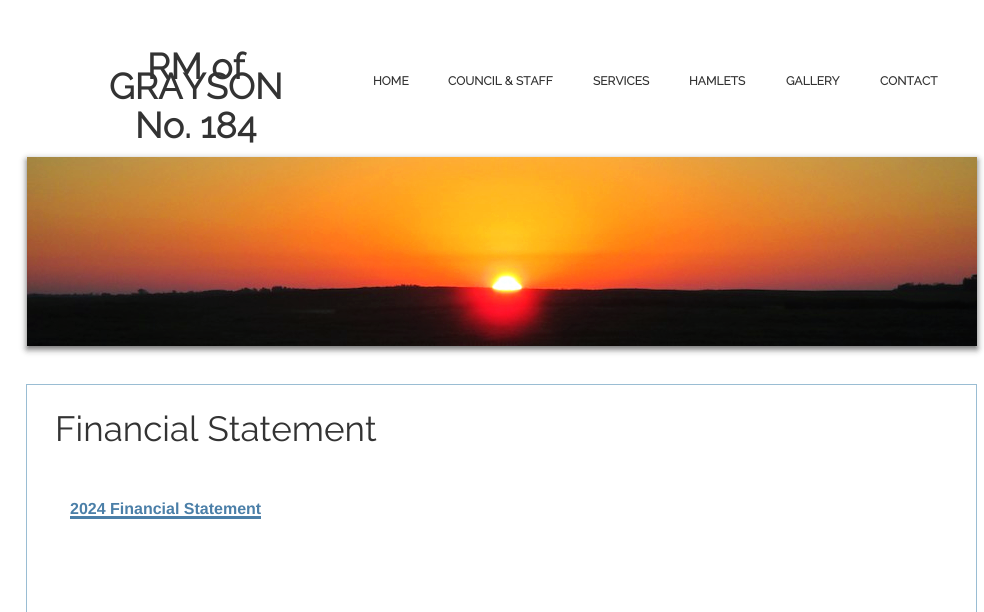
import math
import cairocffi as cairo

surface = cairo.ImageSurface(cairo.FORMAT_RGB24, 984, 612)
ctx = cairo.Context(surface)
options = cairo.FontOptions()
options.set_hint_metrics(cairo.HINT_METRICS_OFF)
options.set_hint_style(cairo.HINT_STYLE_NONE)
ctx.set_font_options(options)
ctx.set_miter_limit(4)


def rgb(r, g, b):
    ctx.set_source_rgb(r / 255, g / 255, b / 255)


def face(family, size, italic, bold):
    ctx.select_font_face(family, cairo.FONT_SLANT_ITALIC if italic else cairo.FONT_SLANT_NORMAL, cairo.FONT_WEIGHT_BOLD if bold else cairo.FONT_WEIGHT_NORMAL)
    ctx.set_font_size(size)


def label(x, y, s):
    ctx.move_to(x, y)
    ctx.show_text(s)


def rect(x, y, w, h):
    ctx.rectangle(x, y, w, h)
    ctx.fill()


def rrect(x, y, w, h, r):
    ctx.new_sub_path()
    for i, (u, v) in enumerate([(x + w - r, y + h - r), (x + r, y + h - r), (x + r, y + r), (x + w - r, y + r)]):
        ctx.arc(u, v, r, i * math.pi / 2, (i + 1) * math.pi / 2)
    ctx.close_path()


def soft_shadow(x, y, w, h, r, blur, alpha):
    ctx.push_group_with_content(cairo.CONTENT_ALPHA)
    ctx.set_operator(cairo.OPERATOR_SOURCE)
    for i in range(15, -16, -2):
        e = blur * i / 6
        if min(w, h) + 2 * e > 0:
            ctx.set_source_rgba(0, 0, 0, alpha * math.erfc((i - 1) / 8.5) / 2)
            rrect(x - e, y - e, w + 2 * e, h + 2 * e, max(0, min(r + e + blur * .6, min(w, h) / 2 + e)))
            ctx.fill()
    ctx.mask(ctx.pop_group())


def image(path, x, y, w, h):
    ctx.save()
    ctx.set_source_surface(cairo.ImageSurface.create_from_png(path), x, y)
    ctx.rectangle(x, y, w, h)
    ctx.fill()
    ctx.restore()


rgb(255, 255, 255)
ctx.paint()
face('Raleway', 36, 0, 1)
rgb(51, 51, 51)
label(147, 79, 'RM of')
label(109, 99, 'GRAYSON')
label(135, 138, 'No. 184')
face('Raleway', 12, 0, 1)
label(373, 85, 'HOME')
label(448, 85, 'COUNCIL & STAFF')
label(593, 85, 'SERVICES')
label(689, 85, 'HAMLETS')
label(786, 85, 'GALLERY')
label(880, 85, 'CONTACT')
rgb(50, 50, 50)
soft_shadow(27, 160, 950, 189, 0, 3.5, 0.75)
image('image0.png', 27, 157, 950, 189)
ctx.rectangle(26.5, 384.5, 950, 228)
rgb(154, 189, 211)
ctx.set_line_width(1)
ctx.stroke()
face('Raleway Thin', 35, 0, 0)
rgb(51, 51, 51)
label(55, 441, 'Financial Statement')
face('Liberation Sans', 16, 0, 1)
rgb(75, 127, 168)
label(70, 514, '2024 Financial Statement')
rect(70, 516, 191, 3)
surface.write_to_png('render.png')
